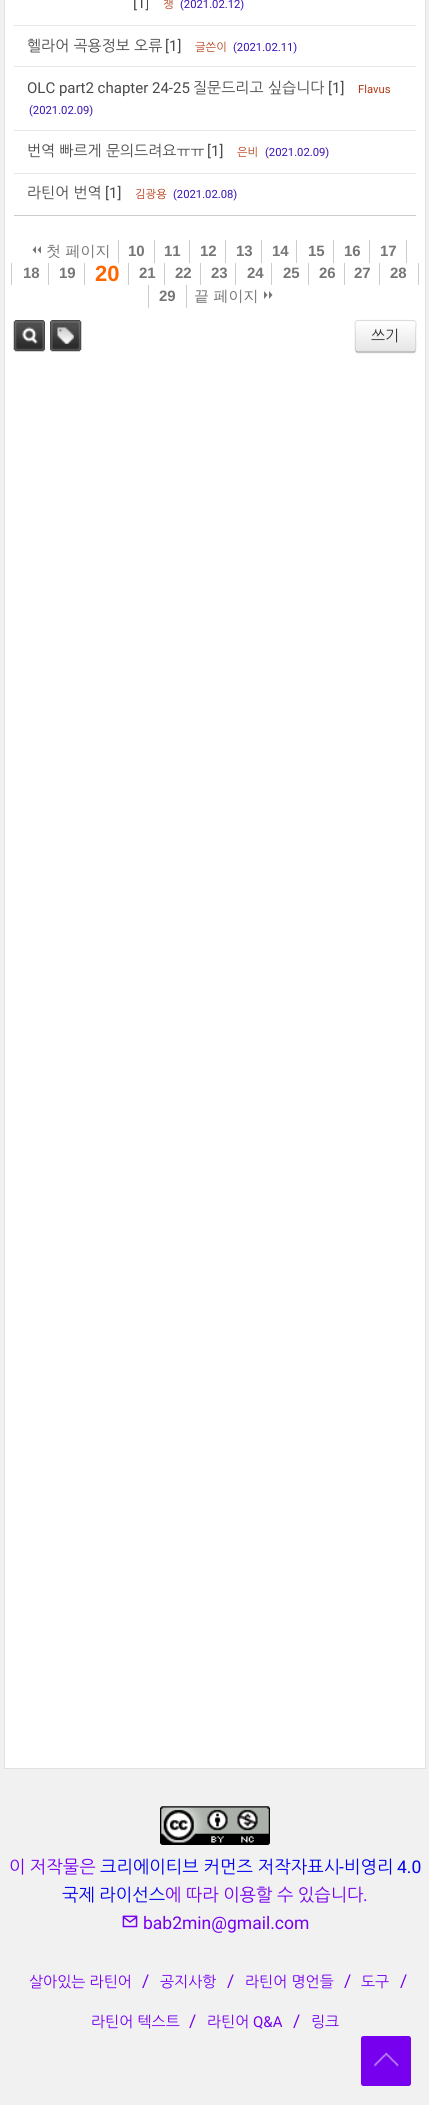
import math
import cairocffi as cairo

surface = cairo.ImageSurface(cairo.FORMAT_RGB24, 429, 2105)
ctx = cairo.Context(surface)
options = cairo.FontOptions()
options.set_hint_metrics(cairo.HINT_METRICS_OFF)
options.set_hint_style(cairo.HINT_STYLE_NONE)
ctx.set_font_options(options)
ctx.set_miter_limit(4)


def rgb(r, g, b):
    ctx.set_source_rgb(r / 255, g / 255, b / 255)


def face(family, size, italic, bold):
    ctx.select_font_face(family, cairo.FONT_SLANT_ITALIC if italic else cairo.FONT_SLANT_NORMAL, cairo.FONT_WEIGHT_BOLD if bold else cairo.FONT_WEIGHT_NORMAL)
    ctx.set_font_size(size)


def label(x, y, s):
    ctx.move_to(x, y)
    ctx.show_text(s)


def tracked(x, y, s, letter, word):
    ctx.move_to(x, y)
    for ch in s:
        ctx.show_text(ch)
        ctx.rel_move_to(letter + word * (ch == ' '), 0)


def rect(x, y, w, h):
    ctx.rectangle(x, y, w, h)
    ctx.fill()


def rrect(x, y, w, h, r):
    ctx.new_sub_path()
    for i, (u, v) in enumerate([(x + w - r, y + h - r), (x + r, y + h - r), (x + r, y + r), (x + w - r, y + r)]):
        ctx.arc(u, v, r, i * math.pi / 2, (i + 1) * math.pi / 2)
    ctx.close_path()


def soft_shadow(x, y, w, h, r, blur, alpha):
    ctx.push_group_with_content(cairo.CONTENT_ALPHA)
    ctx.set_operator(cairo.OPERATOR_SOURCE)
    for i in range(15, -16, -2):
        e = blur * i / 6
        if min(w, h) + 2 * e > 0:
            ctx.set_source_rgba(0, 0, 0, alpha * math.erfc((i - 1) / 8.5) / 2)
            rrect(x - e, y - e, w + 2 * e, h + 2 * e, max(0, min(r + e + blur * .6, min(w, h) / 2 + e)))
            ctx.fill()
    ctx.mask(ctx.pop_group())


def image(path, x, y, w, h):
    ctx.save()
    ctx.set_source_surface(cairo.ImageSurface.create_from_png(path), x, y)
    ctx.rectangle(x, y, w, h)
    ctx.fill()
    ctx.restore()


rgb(241, 241, 241)
ctx.paint()
rgb(255, 255, 255)
ctx.rectangle(4.5, -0.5, 421, 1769)
ctx.fill_preserve()
rgb(225, 225, 225)
ctx.set_line_width(1)
ctx.stroke()
rgb(205, 205, 205)
rect(14, 215, 402, 1)
rgb(230, 230, 230)
rect(14, 25, 402, 1)
face('Roboto', 15, 0, 0)
rgb(74, 74, 74)
label(133, 8, '[1]')
face('NanumGothic', 11.25, 0, 0)
rgb(179, 57, 18)
label(163, 8, '챙')
face('Roboto', 11.25, 0, 0)
rgb(57, 18, 179)
label(180, 8, '(2021.02.12)')
rgb(230, 230, 230)
rect(14, 66, 402, 1)
face('NanumGothic', 15, 0, 0)
rgb(74, 74, 74)
label(27, 51, '헬라어 곡용정보 오류')
face('Roboto', 15, 0, 0)
label(165, 51, '[1]')
face('NanumGothic', 11.25, 0, 0)
rgb(179, 57, 18)
label(195, 51, '글쓴이')
face('Roboto', 11.25, 0, 0)
rgb(57, 18, 179)
label(233, 51, '(2021.02.11)')
rgb(230, 230, 230)
rect(14, 130, 402, 1)
face('Roboto', 15, 0, 0)
rgb(74, 74, 74)
label(27, 93, 'OLC part2 chapter 24-25')
face('NanumGothic', 15, 0, 0)
label(193, 93, '질문드리고')
label(268, 93, '싶습니다')
face('Roboto', 15, 0, 0)
label(328, 93, '[1]')
face('Roboto', 11.25, 0, 0)
rgb(179, 57, 18)
label(358, 93, 'Flavus')
rgb(57, 18, 179)
label(29, 114, '(2021.02.09)')
rgb(230, 230, 230)
rect(14, 173, 402, 1)
face('NanumGothic', 15, 0, 0)
rgb(74, 74, 74)
label(27, 156, '번역 빠르게 문의드려요ㅠㅠ')
face('Roboto', 15, 0, 0)
label(207, 156, '[1]')
face('NanumGothic', 11.25, 0, 0)
rgb(179, 57, 18)
label(237, 156, '은비')
face('Roboto', 11.25, 0, 0)
rgb(57, 18, 179)
label(265, 156, '(2021.02.09)')
face('NanumGothic', 15, 0, 0)
rgb(74, 74, 74)
label(27, 198, '라틴어 번역')
face('Roboto', 15, 0, 0)
label(105, 198, '[1]')
face('NanumGothic', 11.25, 0, 0)
rgb(179, 57, 18)
label(135, 198, '김광용')
face('Roboto', 11.25, 0, 0)
rgb(57, 18, 179)
label(173, 198, '(2021.02.08)')
rgb(118, 118, 118)
ctx.new_path()
ctx.move_to(36, 246)
ctx.line_to(36, 254)
ctx.line_to(32.5, 250)
ctx.close_path()
ctx.fill()
rgb(255, 255, 255)
ctx.new_path()
ctx.move_to(36, 254)
ctx.line_to(32.5, 254)
ctx.line_to(32.5, 250)
ctx.close_path()
ctx.fill()
rgb(118, 118, 118)
ctx.new_path()
ctx.move_to(41, 246)
ctx.line_to(41, 254)
ctx.line_to(37.5, 250)
ctx.close_path()
ctx.fill()
rgb(255, 255, 255)
ctx.new_path()
ctx.move_to(41, 254)
ctx.line_to(37.5, 254)
ctx.line_to(37.5, 250)
ctx.close_path()
ctx.fill()
face('WenQuanYi Zen Hei Medium', 15, 0, 0)
rgb(118, 118, 118)
label(46, 256, '첫 페이지')
rgb(204, 204, 204)
rect(118, 240, 1, 23)
face('Liberation Sans', 15, 0, 1)
rgb(118, 118, 118)
label(128, 256, '10')
rgb(204, 204, 204)
rect(154, 240, 1, 23)
rgb(118, 118, 118)
label(164, 256, '11')
rgb(204, 204, 204)
rect(189, 240, 1, 23)
rgb(118, 118, 118)
label(200, 256, '12')
rgb(204, 204, 204)
rect(225, 240, 1, 23)
rgb(118, 118, 118)
label(236, 256, '13')
rgb(204, 204, 204)
rect(261, 240, 1, 23)
rgb(118, 118, 118)
label(272, 256, '14')
rgb(204, 204, 204)
rect(296, 240, 1, 23)
rgb(118, 118, 118)
label(308, 256, '15')
rgb(204, 204, 204)
rect(333, 240, 1, 23)
rgb(118, 118, 118)
label(344, 256, '16')
rgb(204, 204, 204)
rect(406, 240, 1, 23)
rect(369, 240, 1, 23)
rgb(118, 118, 118)
label(380, 256, '17')
rgb(204, 204, 204)
rect(11, 263, 1, 22)
rgb(118, 118, 118)
label(23, 278, '18')
rgb(204, 204, 204)
rect(48, 263, 1, 22)
rgb(118, 118, 118)
label(59, 278, '19')
rgb(204, 204, 204)
rect(84, 263, 1, 22)
face('Liberation Sans', 22, 0, 1)
rgb(255, 102, 0)
label(95, 281, '20')
rgb(204, 204, 204)
rect(128, 263, 1, 22)
face('Liberation Sans', 15, 0, 1)
rgb(118, 118, 118)
label(139, 278, '21')
rgb(204, 204, 204)
rect(164, 263, 1, 22)
rgb(118, 118, 118)
label(175, 278, '22')
rgb(204, 204, 204)
rect(200, 263, 1, 22)
rgb(118, 118, 118)
label(211, 278, '23')
rgb(204, 204, 204)
rect(235, 263, 1, 22)
rgb(118, 118, 118)
label(247, 278, '24')
rgb(204, 204, 204)
rect(271, 263, 1, 22)
rgb(118, 118, 118)
label(283, 278, '25')
rgb(204, 204, 204)
rect(308, 263, 1, 22)
rgb(118, 118, 118)
label(319, 278, '26')
rgb(204, 204, 204)
rect(344, 263, 1, 22)
rgb(118, 118, 118)
label(354, 278, '27')
rgb(204, 204, 204)
rect(418, 263, 1, 22)
rect(379, 263, 1, 22)
rgb(118, 118, 118)
label(390, 278, '28')
rgb(204, 204, 204)
rect(186, 285, 1, 23)
rect(148, 285, 1, 23)
rgb(118, 118, 118)
label(159, 301, '29')
face('WenQuanYi Zen Hei Medium', 15, 0, 0)
label(194, 301, '끝 페이지')
ctx.new_path()
ctx.move_to(264, 299)
ctx.line_to(264, 291)
ctx.line_to(267.5, 295)
ctx.close_path()
ctx.move_to(269, 299)
ctx.line_to(269, 291)
ctx.line_to(272.5, 295)
ctx.close_path()
ctx.fill()
image('image0.png', 13, 320, 32, 32)
image('image1.png', 50, 320, 32, 32)
rgb(0, 0, 0)
soft_shadow(355, 321, 61, 33, 2.5, 1, 0.05)
rgb(245, 245, 245)
rrect(355, 320, 61, 33, 2.5)
ctx.fill()
gradient = cairo.LinearGradient(386, 321, 386, 351)
gradient.add_color_stop_rgba(0, 1, 1, 1, 1)
gradient.add_color_stop_rgba(1, 0.902, 0.902, 0.902, 1)
ctx.set_source(gradient)
rect(355, 321, 61, 30)
ctx.new_path()
ctx.move_to(415, 351.5)
ctx.line_to(414, 352)
ctx.line_to(357.5, 352)
ctx.line_to(356, 351.5)
rgb(162, 162, 162)
ctx.set_line_width(1.2)
ctx.stroke()
ctx.new_path()
ctx.move_to(356, 351.5)
ctx.curve_to(354.5, 350, 355.5, 338.5, 355.5, 336)
ctx.curve_to(355.5, 319, 351.5, 320.5, 367, 320.5)
ctx.line_to(404.5, 320.5)
ctx.curve_to(419.5, 320.5, 415.5, 319, 415.5, 336)
ctx.curve_to(415.5, 338.5, 416.5, 350, 415, 351.5)
ctx.set_source_rgba(0, 0, 0, 0.1)
ctx.stroke()
face('NanumGothic', 15, 0, 0)
rgb(51, 51, 51)
label(371, 341, '쓰기')
image('image2.png', 160, 1806, 110, 39)
face('NanumGothic', 17.5, 0, 0)
rgb(119, 0, 239)
tracked(9, 1873, '이 저작물은', 0, -0.5)
rgb(0, 0, 238)
label(100, 1873, '크리에이티브 커먼즈 저작자표시')
face('Roboto', 17.5, 0, 0)
label(339, 1873, '-')
face('NanumGothic', 17.5, 0, 0)
label(344, 1873, '비영리')
face('Roboto', 17.5, 0, 0)
label(397, 1873, '4.0')
face('NanumGothic', 17.5, 0, 0)
tracked(62, 1901, '국제 라이선스', 0, -0.5)
rgb(119, 0, 239)
tracked(165, 1901, '에 따라 이용할 수 있습니다', 0, -0.5)
face('Roboto', 17.5, 0, 0)
label(363, 1901, '.')
image('image3.png', 122, 1915, 16, 13)
label(143, 1929, 'bab2min@gmail.com')
face('NanumGothic', 15, 0, 0)
label(29, 1987, '살아있는 라틴어')
face('Roboto', 17.5, 0, 0)
label(142, 1987, '/')
face('NanumGothic', 15, 0, 0)
label(160, 1987, '공지사항')
face('Roboto', 17.5, 0, 0)
label(227, 1987, '/')
face('NanumGothic', 15, 0, 0)
label(245, 1987, '라틴어 명언들')
face('Roboto', 17.5, 0, 0)
label(344, 1987, '/')
face('NanumGothic', 15, 0, 0)
label(361, 1987, '도구')
face('Roboto', 17.5, 0, 0)
label(400, 1987, '/')
face('NanumGothic', 15, 0, 0)
label(91, 2027, '라틴어 텍스트')
face('Roboto', 17.5, 0, 0)
label(189, 2027, '/')
face('NanumGothic', 15, 0, 0)
label(207, 2027, '라틴어')
face('Roboto', 15, 0, 0)
label(253, 2027, 'Q&A')
face('Roboto', 17.5, 0, 0)
label(293, 2027, '/')
face('NanumGothic', 15, 0, 0)
label(311, 2027, '링크')
rrect(361, 2036, 50, 50, 2.5)
ctx.fill()
image('image4.png', 374, 2052, 25, 15)
surface.write_to_png('render.png')
